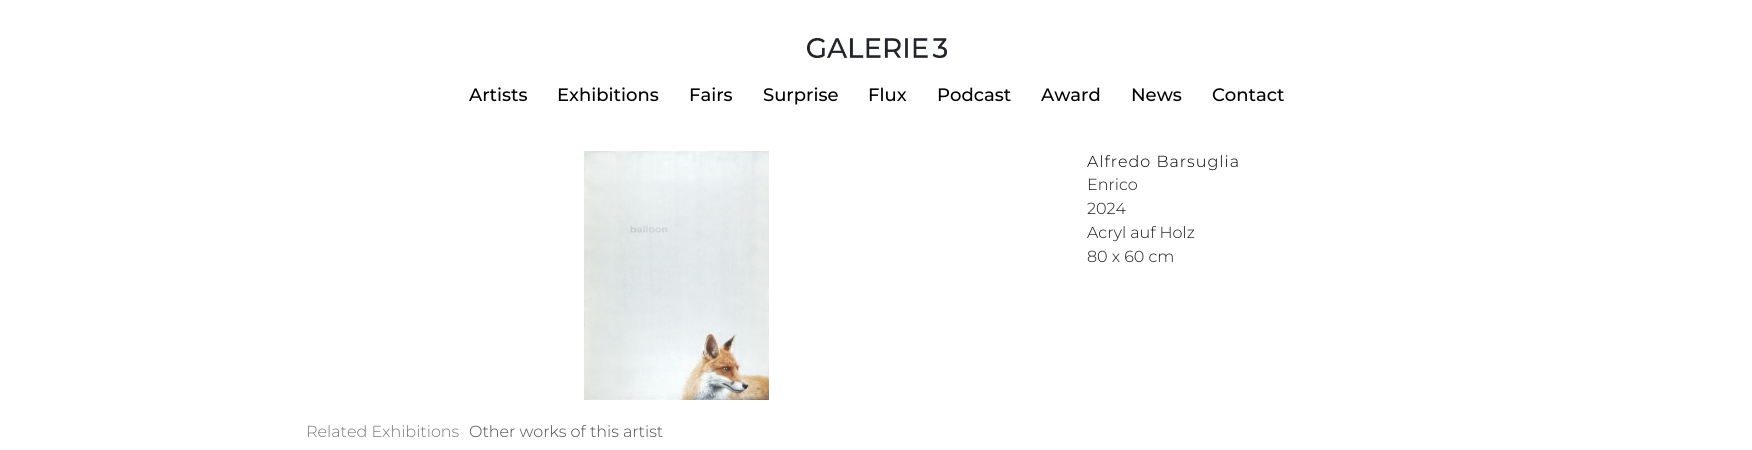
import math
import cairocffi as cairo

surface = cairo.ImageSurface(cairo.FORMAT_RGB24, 1752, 450)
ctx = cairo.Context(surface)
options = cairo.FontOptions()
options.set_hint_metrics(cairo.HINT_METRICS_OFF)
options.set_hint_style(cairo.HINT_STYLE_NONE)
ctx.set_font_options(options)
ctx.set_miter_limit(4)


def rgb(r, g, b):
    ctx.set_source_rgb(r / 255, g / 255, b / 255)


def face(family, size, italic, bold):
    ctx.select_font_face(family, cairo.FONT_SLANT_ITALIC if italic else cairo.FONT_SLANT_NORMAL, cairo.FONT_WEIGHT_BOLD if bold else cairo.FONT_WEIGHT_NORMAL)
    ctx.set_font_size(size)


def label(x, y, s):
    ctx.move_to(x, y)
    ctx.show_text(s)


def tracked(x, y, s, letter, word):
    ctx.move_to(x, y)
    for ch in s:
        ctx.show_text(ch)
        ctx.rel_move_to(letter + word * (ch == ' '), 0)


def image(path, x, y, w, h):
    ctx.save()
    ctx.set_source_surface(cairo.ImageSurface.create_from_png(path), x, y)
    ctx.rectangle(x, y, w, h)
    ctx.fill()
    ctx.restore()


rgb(255, 255, 255)
ctx.paint()
image('image0.png', 807, 38, 140, 20)
face('Montserrat Medium', 18, 0, 0)
rgb(0, 0, 0)
label(469, 101, 'Artists')
label(557, 101, 'Exhibitions')
label(689, 101, 'Fairs')
label(763, 101, 'Surprise')
label(868, 101, 'Flux')
label(937, 101, 'Podcast')
label(1041, 101, 'Award')
label(1131, 101, 'News')
label(1212, 101, 'Contact')
image('image1.png', 584, 151, 185, 249)
face('Montserrat Light', 16, 0, 0)
tracked(1087, 167, 'Alfredo Barsuglia', 1, 0)
rgb(24, 24, 24)
label(1087, 190, 'Enrico')
label(1087, 214, '2024')
label(1087, 238, 'Acryl auf Holz')
label(1087, 262, '80 x 60 cm')
rgb(117, 117, 117)
label(306, 437, 'Related Exhibitions')
rgb(71, 71, 71)
label(469, 437, 'Other works of this artist')
surface.write_to_png('render.png')
